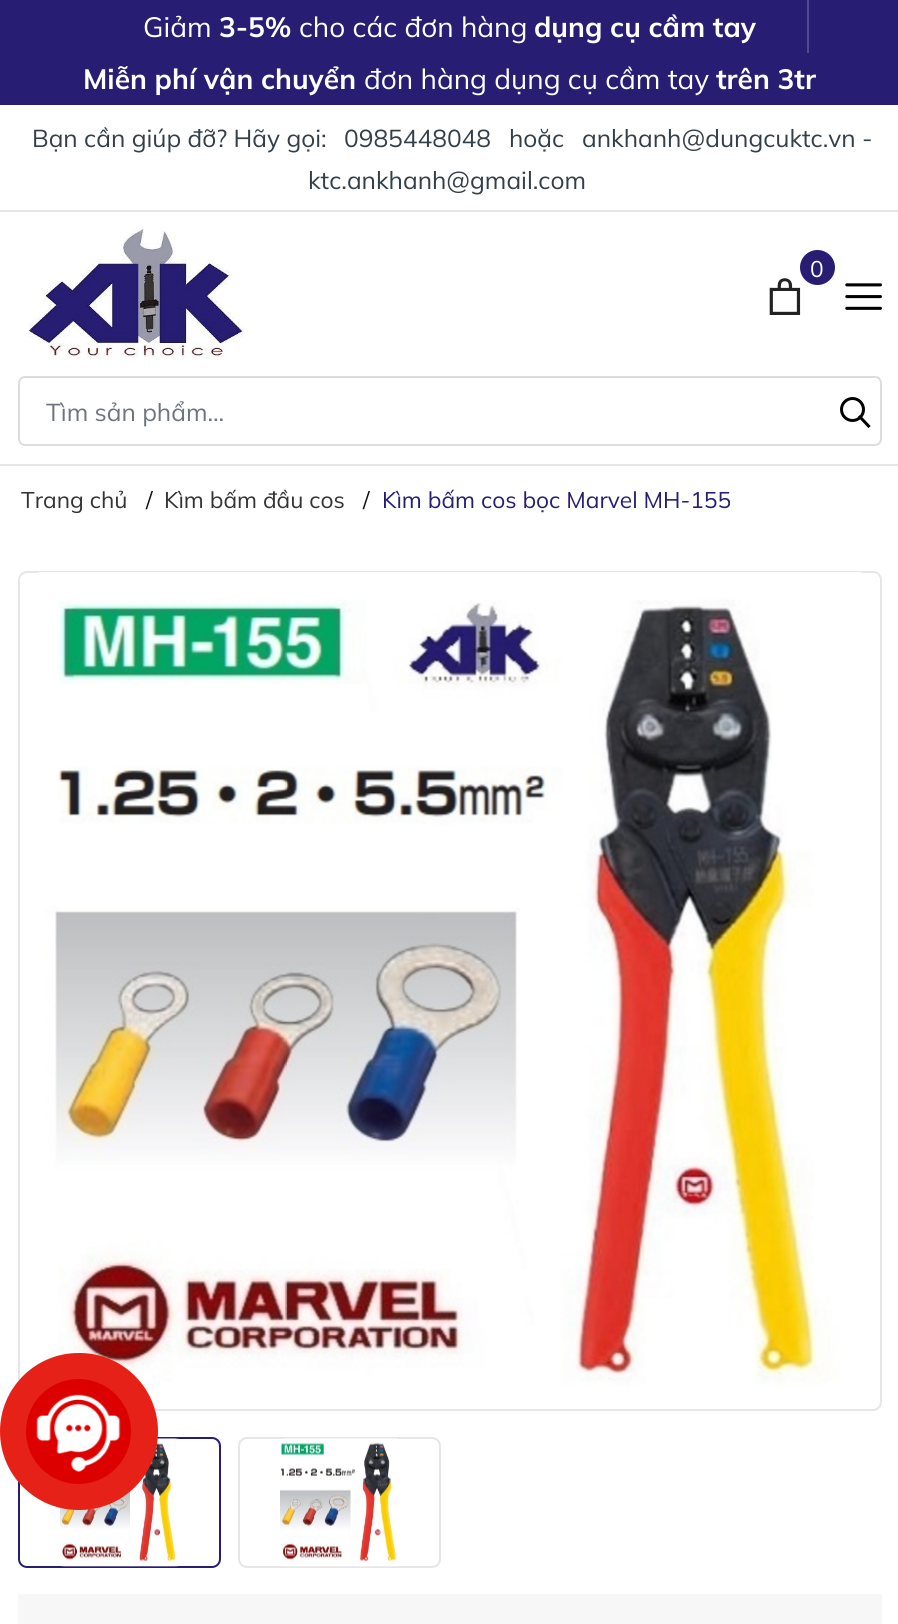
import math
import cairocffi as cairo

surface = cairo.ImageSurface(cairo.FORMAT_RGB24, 898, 1624)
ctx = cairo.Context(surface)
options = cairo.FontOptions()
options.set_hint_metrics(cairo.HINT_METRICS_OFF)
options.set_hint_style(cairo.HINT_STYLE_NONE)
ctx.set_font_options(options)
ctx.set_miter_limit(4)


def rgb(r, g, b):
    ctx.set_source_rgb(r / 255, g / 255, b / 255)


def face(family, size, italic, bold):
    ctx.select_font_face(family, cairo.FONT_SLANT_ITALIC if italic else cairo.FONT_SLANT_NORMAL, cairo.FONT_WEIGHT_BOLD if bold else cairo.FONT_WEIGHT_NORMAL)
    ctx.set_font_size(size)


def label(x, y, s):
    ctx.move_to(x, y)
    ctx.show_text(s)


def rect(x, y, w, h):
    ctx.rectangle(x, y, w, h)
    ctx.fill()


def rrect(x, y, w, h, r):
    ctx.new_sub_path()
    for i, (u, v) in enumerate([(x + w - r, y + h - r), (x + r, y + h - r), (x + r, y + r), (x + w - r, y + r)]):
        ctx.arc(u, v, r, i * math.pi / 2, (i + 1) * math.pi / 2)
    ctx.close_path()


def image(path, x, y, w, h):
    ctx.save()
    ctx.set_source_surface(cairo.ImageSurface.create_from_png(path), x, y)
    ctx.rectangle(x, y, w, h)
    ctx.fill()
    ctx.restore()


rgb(255, 255, 255)
ctx.paint()
rgb(39, 29, 115)
rect(0, 0, 898, 105)
face('Mulish', 28, 0, 0)
rgb(255, 255, 255)
label(143, 37, 'Giảm')
face('Mulish', 28, 0, 1)
label(219, 37, '3-5%')
face('Mulish', 28, 0, 0)
label(299, 37, 'cho các đơn hàng')
face('Mulish', 28, 0, 1)
label(534, 37, 'dụng cụ cầm tay')
rgb(82, 74, 143)
rect(807, 0, 2, 53)
rgb(255, 255, 255)
label(83, 89, 'Miễn phí vận chuyển')
face('Mulish', 28, 0, 0)
label(364, 89, 'đơn hàng dụng cụ cầm tay')
face('Mulish', 28, 0, 1)
label(716, 89, 'trên 3tr')
rgb(230, 230, 230)
ctx.new_path()
ctx.move_to(0, 210)
ctx.line_to(0, 212)
ctx.line_to(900, 212)
ctx.line_to(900, 107)
ctx.line_to(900, 210)
ctx.close_path()
ctx.fill()
face('Mulish', 24.5, 0, 0)
rgb(51, 63, 72)
label(32, 147, 'Bạn cần giúp đỡ? Hãy gọi:')
label(344, 147, '0985448048')
label(509, 147, 'hoặc')
label(582, 147, 'ankhanh@dungcuktc.vn -')
label(308, 189, 'ktc.ankhanh@gmail.com')
image('image0.png', 28, 227, 217, 132)
image('image1.png', 769, 278, 32, 37)
rgb(39, 29, 115)
ctx.arc(817.5, 267.5, 17.5, 0, 2 * math.pi)
ctx.fill()
face('Mulish', 22.75, 0, 0)
rgb(255, 255, 255)
label(810, 277, '0')
image('image2.png', 845, 283, 37, 27)
rrect(19, 377, 862, 68, 6)
rgb(221, 221, 221)
ctx.stroke()
ctx.save()
ctx.rectangle(46, 396, 782, 31)
ctx.clip()
face('Mulish', 24.5, 0, 0)
rgb(108, 117, 125)
label(46, 421, 'Tìm sản phẩm...')
ctx.restore()
ctx.new_path()
ctx.move_to(868.5, 426)
ctx.line_to(860, 417)
rgb(0, 0, 0)
ctx.set_line_width(3)
ctx.set_line_cap(cairo.LINE_CAP_SQUARE)
ctx.stroke()
ctx.arc(852.5, 409.5, 11, 0, 2 * math.pi)
ctx.set_line_cap(cairo.LINE_CAP_BUTT)
ctx.stroke()
rgb(230, 230, 230)
rect(0, 464, 898, 2)
rgb(51, 51, 51)
label(21, 508, 'Trang chủ')
rgb(17, 17, 17)
label(146, 508, '/')
rgb(51, 51, 51)
label(164, 508, 'Kìm bấm đầu cos')
rgb(17, 17, 17)
label(363, 508, '/')
rgb(39, 29, 115)
label(382, 508, 'Kìm bấm cos bọc Marvel MH-155')
rrect(19, 572, 862, 838, 8)
rgb(230, 230, 230)
ctx.set_line_width(2)
ctx.stroke()
image('image3.png', 37, 572, 826, 816)
rrect(19, 1438, 201, 129, 8)
rgb(39, 29, 115)
ctx.stroke()
image('image4.png', 59, 1438, 120, 129)
rrect(239, 1438, 201, 129, 8)
rgb(230, 230, 230)
ctx.stroke()
image('image5.png', 280, 1438, 118, 129)
rgb(247, 247, 247)
rect(18, 1594, 864, 30)
rgb(230, 33, 23)
rrect(2, 1355, 154, 153, 76.5)
ctx.fill_preserve()
ctx.set_line_width(4)
ctx.stroke()
rgb(221, 0, 0)
ctx.arc(78.5, 1431.5, 52.5, 0, 2 * math.pi)
ctx.fill()
image('image6.png', 36, 1394, 85, 78)
surface.write_to_png('render.png')
